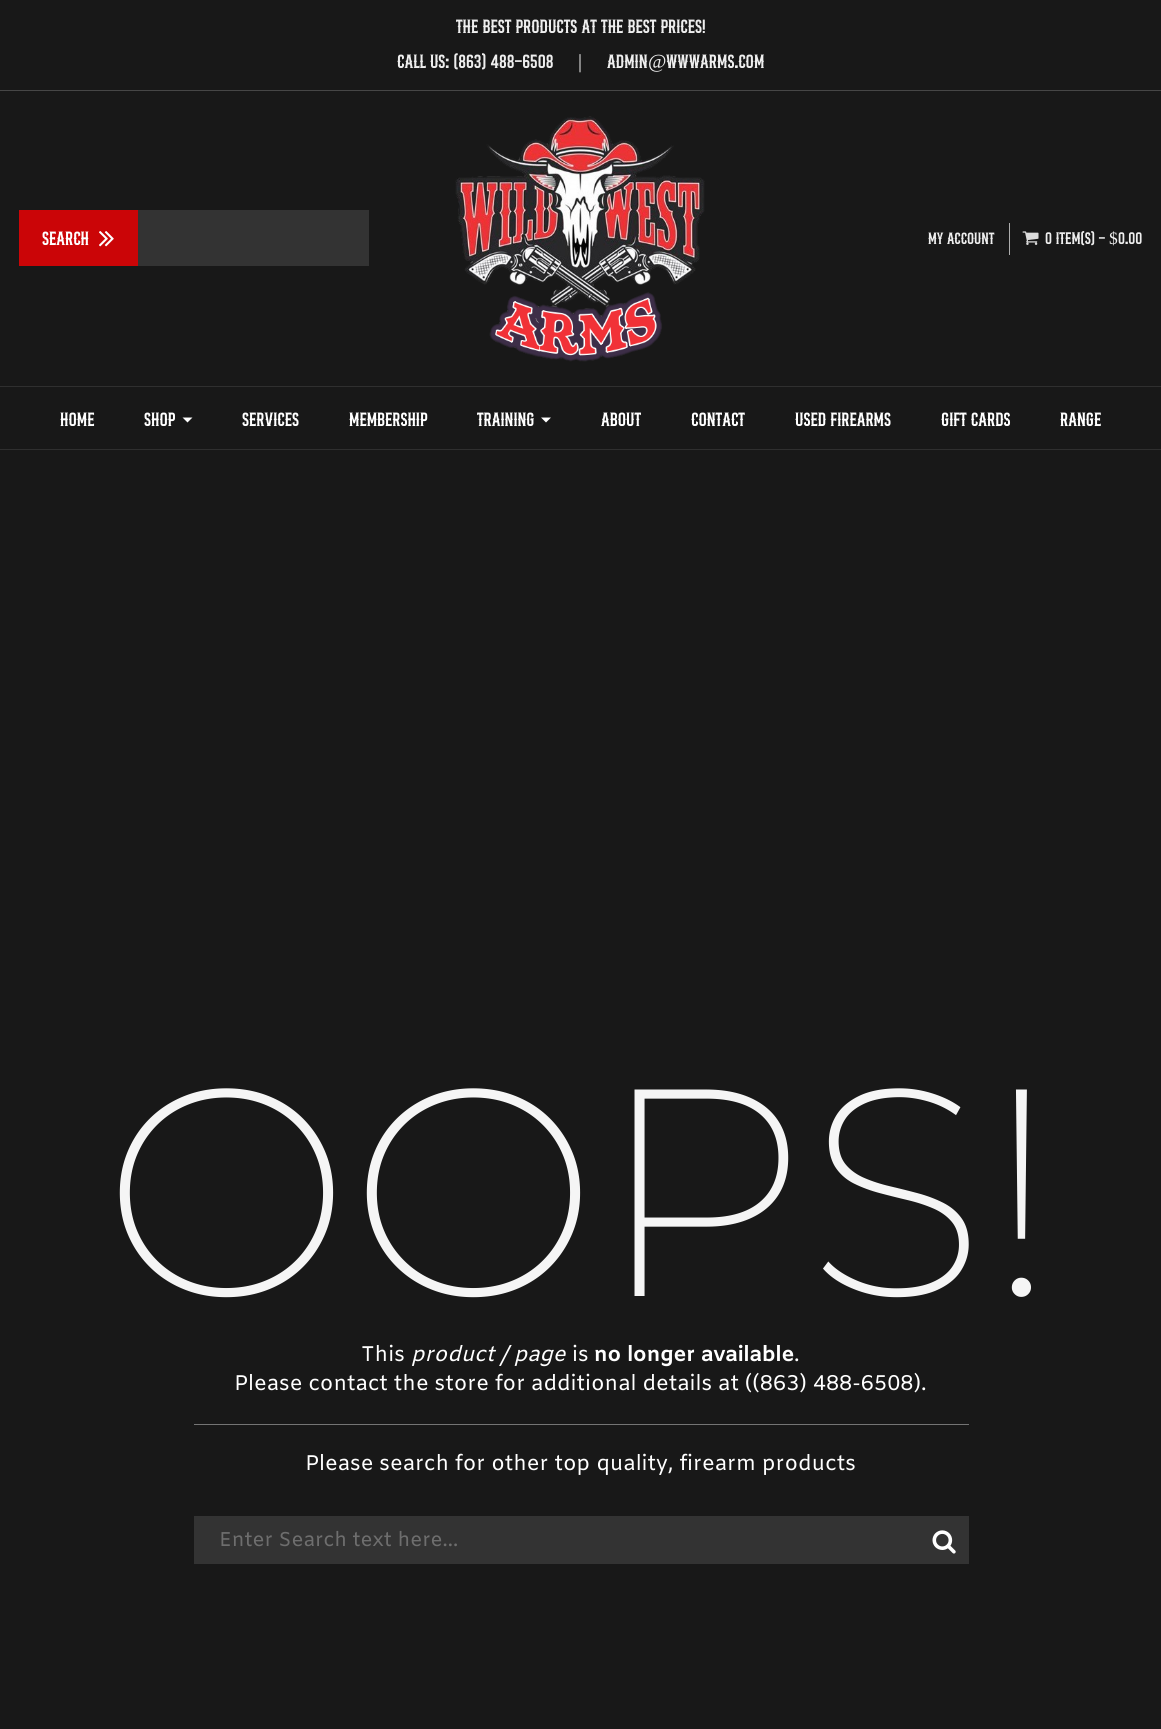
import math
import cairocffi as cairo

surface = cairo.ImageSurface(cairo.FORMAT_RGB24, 1161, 1729)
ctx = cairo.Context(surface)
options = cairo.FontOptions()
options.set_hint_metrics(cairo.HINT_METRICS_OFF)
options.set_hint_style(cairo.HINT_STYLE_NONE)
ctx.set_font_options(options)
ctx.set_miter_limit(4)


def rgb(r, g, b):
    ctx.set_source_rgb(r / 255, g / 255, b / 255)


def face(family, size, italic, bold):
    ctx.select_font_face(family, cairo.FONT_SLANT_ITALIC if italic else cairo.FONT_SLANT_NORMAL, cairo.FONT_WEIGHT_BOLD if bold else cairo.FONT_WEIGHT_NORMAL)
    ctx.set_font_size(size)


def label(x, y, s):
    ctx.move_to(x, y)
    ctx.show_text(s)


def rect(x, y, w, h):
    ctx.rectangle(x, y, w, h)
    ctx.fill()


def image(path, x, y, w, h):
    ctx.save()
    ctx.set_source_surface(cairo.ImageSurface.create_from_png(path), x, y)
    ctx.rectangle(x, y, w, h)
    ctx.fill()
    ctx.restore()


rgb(24, 24, 24)
ctx.paint()
rgb(70, 70, 70)
rect(0, 90, 1161, 1)
face('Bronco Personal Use', 20, 0, 0)
rgb(238, 238, 238)
label(456, 33, 'The best products at the best prices!')
label(397, 68, 'Call Us: (863) 488-6508')
face('Liberation Serif', 20, 0, 0)
label(578, 68, '|')
face('Bronco Personal Use', 20, 0, 0)
label(607, 68, 'admin')
face('Liberation Serif', 20, 0, 0)
label(648, 68, '@')
face('Bronco Personal Use', 20, 0, 0)
label(666, 68, 'wwwarms.com')
rgb(203, 5, 7)
rect(19, 210, 119, 56)
rgb(255, 255, 255)
label(42, 245, 'SEARCH')
image('image0.png', 99, 231, 15, 16)
rgb(51, 51, 51)
rect(138, 210, 231, 56)
image('image1.png', 455, 116, 250, 246)
rgb(173, 173, 173)
rect(1009, 223, 1, 32)
face('Bronco Personal Use', 17, 0, 0)
rgb(238, 238, 238)
label(928, 244, 'My Account')
image('image2.png', 1022, 231, 17, 14)
face('Bronco Personal Use', 17.5, 0, 0)
label(1045, 244, '0 Item(S) -')
face('Liberation Serif', 17.5, 0, 0)
label(1109, 244, '$')
face('Bronco Personal Use', 17.5, 0, 0)
label(1118, 244, '0.00')
rgb(47, 47, 47)
rect(0, 386, 1161, 1)
rect(0, 449, 1161, 1)
face('Bronco Personal Use', 20, 0, 0)
rgb(255, 255, 255)
label(60, 426, 'HOME')
label(144, 426, 'SHOP')
ctx.new_path()
ctx.move_to(182.5, 417.5)
ctx.line_to(192.5, 417.5)
ctx.line_to(187.5, 422.5)
ctx.close_path()
ctx.fill()
label(242, 426, 'SERVICES')
label(349, 426, 'MEMBERSHIP')
label(477, 426, 'TRAINING')
ctx.new_path()
ctx.move_to(541, 417.5)
ctx.line_to(551, 417.5)
ctx.line_to(546, 422.5)
ctx.close_path()
ctx.fill()
label(601, 426, 'ABOUT')
label(691, 426, 'CONTACT')
label(795, 426, 'USED FIREARMS')
label(941, 426, 'GIFT CARDS')
label(1060, 426, 'RANGE')
face('Montserrat ExtraLight', 295, 0, 0)
rgb(245, 245, 245)
label(103, 1296, 'OOPS!')
face('Amiko', 21.25, 0, 0)
rgb(255, 255, 255)
label(361, 1361, 'This')
face('Amiko', 21.25, 1, 0)
label(411, 1361, 'product / page')
face('Amiko', 21.25, 0, 0)
label(572, 1361, 'is')
face('Amiko', 21.25, 0, 1)
label(594, 1361, 'no longer available')
face('Amiko', 21.25, 0, 0)
label(794, 1361, '.')
label(234, 1390, 'Please contact the store for additional details at ((863) 488-6508).')
rgb(116, 116, 116)
rect(194, 1424, 775, 1)
rgb(255, 255, 255)
label(305, 1470, 'Please search for other top quality, firearm products')
rgb(51, 51, 51)
rect(194, 1516, 775, 48)
face('Amiko', 20, 0, 0)
rgb(110, 110, 110)
label(219, 1546, 'Enter Search text here...')
image('image3.png', 932, 1530, 24, 24)
surface.write_to_png('render.png')
